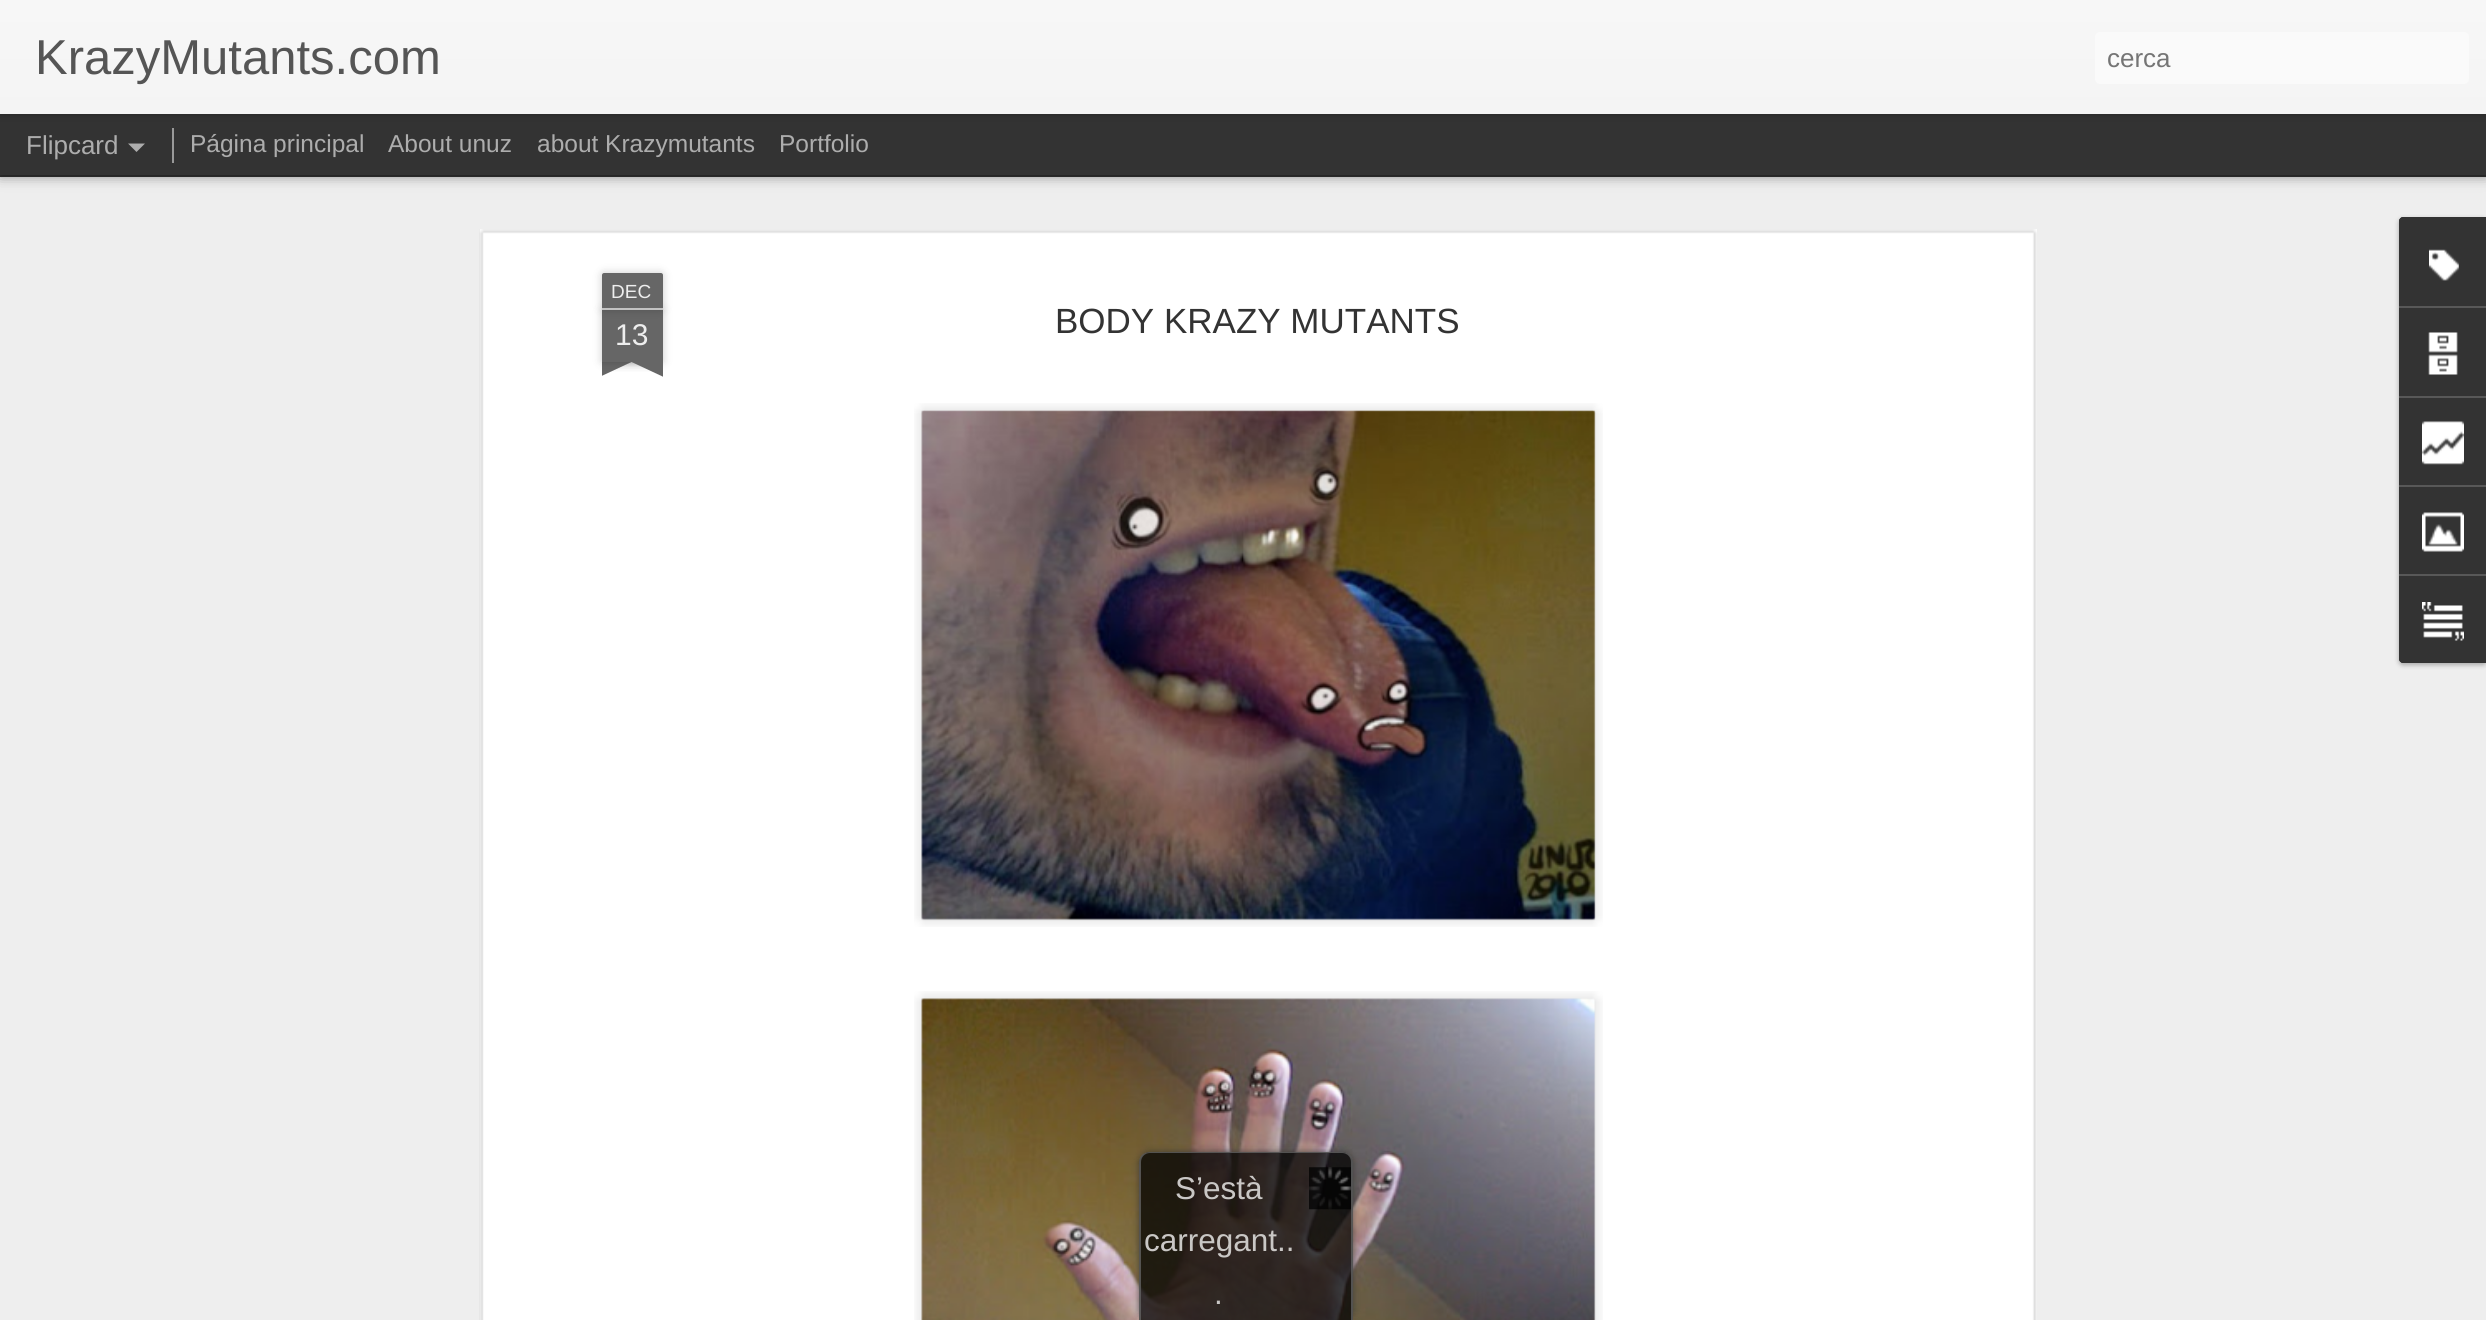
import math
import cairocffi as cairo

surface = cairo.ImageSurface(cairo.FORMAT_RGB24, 2486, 1320)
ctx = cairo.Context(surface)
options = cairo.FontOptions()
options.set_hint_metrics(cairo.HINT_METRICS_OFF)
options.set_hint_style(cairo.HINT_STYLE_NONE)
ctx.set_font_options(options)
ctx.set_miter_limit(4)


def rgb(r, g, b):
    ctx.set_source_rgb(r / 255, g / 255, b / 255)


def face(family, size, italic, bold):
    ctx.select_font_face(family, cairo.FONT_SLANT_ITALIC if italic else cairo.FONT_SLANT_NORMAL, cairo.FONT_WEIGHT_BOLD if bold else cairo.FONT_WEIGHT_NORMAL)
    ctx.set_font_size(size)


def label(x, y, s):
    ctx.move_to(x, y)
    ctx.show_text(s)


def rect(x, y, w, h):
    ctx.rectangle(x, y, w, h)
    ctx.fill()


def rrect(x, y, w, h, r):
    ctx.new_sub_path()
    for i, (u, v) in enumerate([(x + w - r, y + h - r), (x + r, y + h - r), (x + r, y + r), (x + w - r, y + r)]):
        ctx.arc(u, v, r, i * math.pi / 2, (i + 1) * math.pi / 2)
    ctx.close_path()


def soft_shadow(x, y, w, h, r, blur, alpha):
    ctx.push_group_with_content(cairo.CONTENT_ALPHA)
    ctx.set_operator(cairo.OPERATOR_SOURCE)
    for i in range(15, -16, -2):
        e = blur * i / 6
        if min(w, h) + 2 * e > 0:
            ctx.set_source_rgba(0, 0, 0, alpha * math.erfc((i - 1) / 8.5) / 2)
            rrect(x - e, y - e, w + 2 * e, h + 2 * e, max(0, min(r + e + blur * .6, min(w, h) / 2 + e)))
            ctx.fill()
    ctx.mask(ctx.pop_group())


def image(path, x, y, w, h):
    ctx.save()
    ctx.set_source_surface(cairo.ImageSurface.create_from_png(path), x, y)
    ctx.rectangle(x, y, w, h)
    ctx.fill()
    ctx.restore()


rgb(51, 51, 51)
ctx.paint()
rgb(238, 238, 238)
rect(0, 177, 2486, 1143)
rgb(0, 0, 0)
soft_shadow(0, 114, 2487, 61, 0, 7, 0.5)
rgb(51, 51, 51)
rect(0, 114, 2486, 61)
rgb(153, 153, 153)
rect(172, 128, 2, 35)
rgb(0, 0, 0)
soft_shadow(0, 0, 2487, 114, 0, 4.5, 0.3)
gradient = cairo.LinearGradient(0, 0, 0, 114)
gradient.add_color_stop_rgba(0, 0.969, 0.969, 0.969, 1)
gradient.add_color_stop_rgba(1, 0.957, 0.957, 0.957, 1)
ctx.set_source(gradient)
rect(0, 0, 2486, 114)
face('Liberation Sans', 49, 0, 0)
rgb(85, 85, 85)
label(35, 74, 'KrazyMutants.com')
rgb(250, 250, 250)
rrect(2095, 32, 374, 52, 5)
ctx.fill()
face('Liberation Sans', 26, 0, 0)
rgb(117, 117, 117)
label(2107, 67, 'cerca')
rgb(173, 173, 173)
label(26, 154, 'Flipcard')
ctx.new_path()
ctx.move_to(128, 143.5)
ctx.line_to(145, 143.5)
ctx.line_to(136.5, 152)
ctx.close_path()
ctx.fill()
face('Liberation Sans', 24.5, 0, 0)
label(190, 152, 'Página principal')
label(388, 152, 'About unuz')
label(537, 152, 'about Krazymutants')
label(779, 152, 'Portfolio')
rgb(255, 255, 255)
rect(480, 229, 1557, 1091)
image('image0.png', 479, 229, 1558, 1091)
rgb(0, 0, 0)
soft_shadow(602, 310, 61, 52, 0, 4.5, 0.2)
rgb(102, 102, 102)
rect(602, 310, 61, 52)
rgb(0, 0, 0)
soft_shadow(602, 273, 61, 37, 2, 4.5, 0.2)
rgb(102, 102, 102)
ctx.new_path()
ctx.move_to(604, 273)
ctx.line_to(661, 273)
ctx.curve_to(662, 273, 663, 274, 663, 275)
ctx.line_to(663, 310)
ctx.line_to(602, 310)
ctx.line_to(602, 275)
ctx.curve_to(602, 274, 603, 273, 604, 273)
ctx.close_path()
ctx.fill()
rgb(194, 194, 194)
rect(602, 308, 61, 2)
face('Liberation Sans', 19, 0, 0)
rgb(238, 238, 238)
label(611, 298, 'DEC')
face('Liberation Sans', 30, 0, 0)
label(615, 345, '13')
ctx.save()
ctx.rectangle(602, 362, 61, 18)
ctx.clip()
rgb(0, 0, 0)
soft_shadow(586, 345, 88, 17, 0, 4.5, 0.2)
ctx.restore()
ctx.save()
ctx.rectangle(602, 362, 61, 18)
ctx.clip()
rgb(102, 102, 102)
ctx.new_path()
ctx.move_to(586, 364)
ctx.line_to(665, 327)
ctx.line_to(672, 343)
ctx.line_to(593, 380)
ctx.close_path()
ctx.fill()
ctx.restore()
ctx.save()
ctx.rectangle(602, 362, 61, 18)
ctx.clip()
rgb(0, 0, 0)
soft_shadow(592, 345, 87, 17, 0, 4.5, 0.2)
ctx.restore()
ctx.save()
ctx.rectangle(602, 362, 61, 18)
ctx.clip()
rgb(102, 102, 102)
ctx.new_path()
ctx.move_to(598, 327)
ctx.line_to(678, 364)
ctx.line_to(670, 380)
ctx.line_to(591, 343)
ctx.close_path()
ctx.fill()
ctx.restore()
face('Liberation Sans', 35, 0, 0)
rgb(51, 51, 51)
label(1055, 333, 'BODY KRAZY MUTANTS')
image('image1.png', 914, 403, 689, 524)
image('image2.png', 921, 410, 675, 511)
image('image3.png', 914, 991, 689, 329)
image('image4.png', 921, 998, 675, 322)
rgb(0, 0, 0)
soft_shadow(2399, 219, 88, 446, 4, 2.5, 0.3)
rgb(51, 51, 51)
ctx.new_path()
ctx.move_to(2403, 217)
ctx.line_to(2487, 217)
ctx.line_to(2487, 663)
ctx.line_to(2403, 663)
ctx.curve_to(2401, 663, 2399, 661, 2399, 659)
ctx.line_to(2399, 221)
ctx.curve_to(2399, 219, 2401, 217, 2403, 217)
ctx.close_path()
ctx.fill()
ctx.new_path()
ctx.move_to(2403, 217)
ctx.line_to(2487, 217)
ctx.line_to(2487, 306)
ctx.line_to(2399, 306)
ctx.line_to(2399, 221)
ctx.curve_to(2399, 219, 2401, 217, 2403, 217)
ctx.close_path()
ctx.fill()
image('image5.png', 2429, 249, 30, 32)
rgb(88, 88, 88)
rect(2399, 306, 87, 2)
image('image6.png', 2428, 332, 30, 43)
rect(2399, 396, 87, 2)
image('image7.png', 2422, 421, 42, 44)
rect(2399, 485, 87, 2)
image('image8.png', 2422, 512, 42, 40)
rgb(51, 51, 51)
ctx.new_path()
ctx.move_to(2399, 574)
ctx.line_to(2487, 574)
ctx.line_to(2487, 663)
ctx.line_to(2403, 663)
ctx.curve_to(2401, 663, 2399, 661, 2399, 659)
ctx.close_path()
ctx.fill()
rgb(88, 88, 88)
rect(2399, 574, 87, 2)
image('image9.png', 2422, 602, 42, 39)
ctx.save()
ctx.set_fill_rule(cairo.FILL_RULE_EVEN_ODD)
ctx.new_path()
ctx.move_to(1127, 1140)
ctx.line_to(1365, 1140)
ctx.line_to(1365, 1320)
ctx.line_to(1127, 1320)
ctx.close_path()
ctx.move_to(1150, 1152)
ctx.line_to(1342, 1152)
ctx.curve_to(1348, 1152, 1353, 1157, 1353, 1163)
ctx.line_to(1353, 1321)
ctx.line_to(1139, 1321)
ctx.line_to(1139, 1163)
ctx.curve_to(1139, 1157, 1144, 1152, 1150, 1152)
ctx.close_path()
ctx.clip()
rgb(51, 51, 51)
soft_shadow(1139, 1152, 214, 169, 11, 3.5, 0.75)
ctx.restore()
ctx.set_source_rgba(0, 0, 0, 0.75)
ctx.new_path()
ctx.move_to(1150, 1152)
ctx.line_to(1342, 1152)
ctx.curve_to(1348, 1152, 1353, 1157, 1353, 1163)
ctx.line_to(1353, 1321)
ctx.line_to(1139, 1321)
ctx.line_to(1139, 1163)
ctx.curve_to(1139, 1157, 1144, 1152, 1150, 1152)
ctx.close_path()
ctx.fill()
ctx.set_source_rgba(0.4, 0.4, 0.4, 0.75)
ctx.set_fill_rule(cairo.FILL_RULE_EVEN_ODD)
ctx.new_path()
ctx.move_to(1150, 1152)
ctx.line_to(1342, 1152)
ctx.curve_to(1348, 1152, 1353, 1156, 1353, 1162)
ctx.line_to(1353, 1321)
ctx.line_to(1139, 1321)
ctx.line_to(1139, 1162)
ctx.curve_to(1139, 1156, 1144, 1152, 1150, 1152)
ctx.close_path()
ctx.move_to(1150, 1153)
ctx.line_to(1342, 1153)
ctx.curve_to(1347, 1153, 1351, 1157, 1351, 1162)
ctx.line_to(1351, 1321)
ctx.line_to(1141, 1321)
ctx.line_to(1141, 1162)
ctx.curve_to(1141, 1157, 1145, 1153, 1150, 1153)
ctx.close_path()
ctx.fill()
image('image10.png', 1309, 1167, 42, 43)
face('Liberation Sans', 31.5, 0, 0)
rgb(201, 199, 197)
label(1175, 1199, 'S’està')
label(1144, 1251, 'carregant')
label(1277, 1251, '..')
label(1214, 1304, '.')
surface.write_to_png('render.png')
